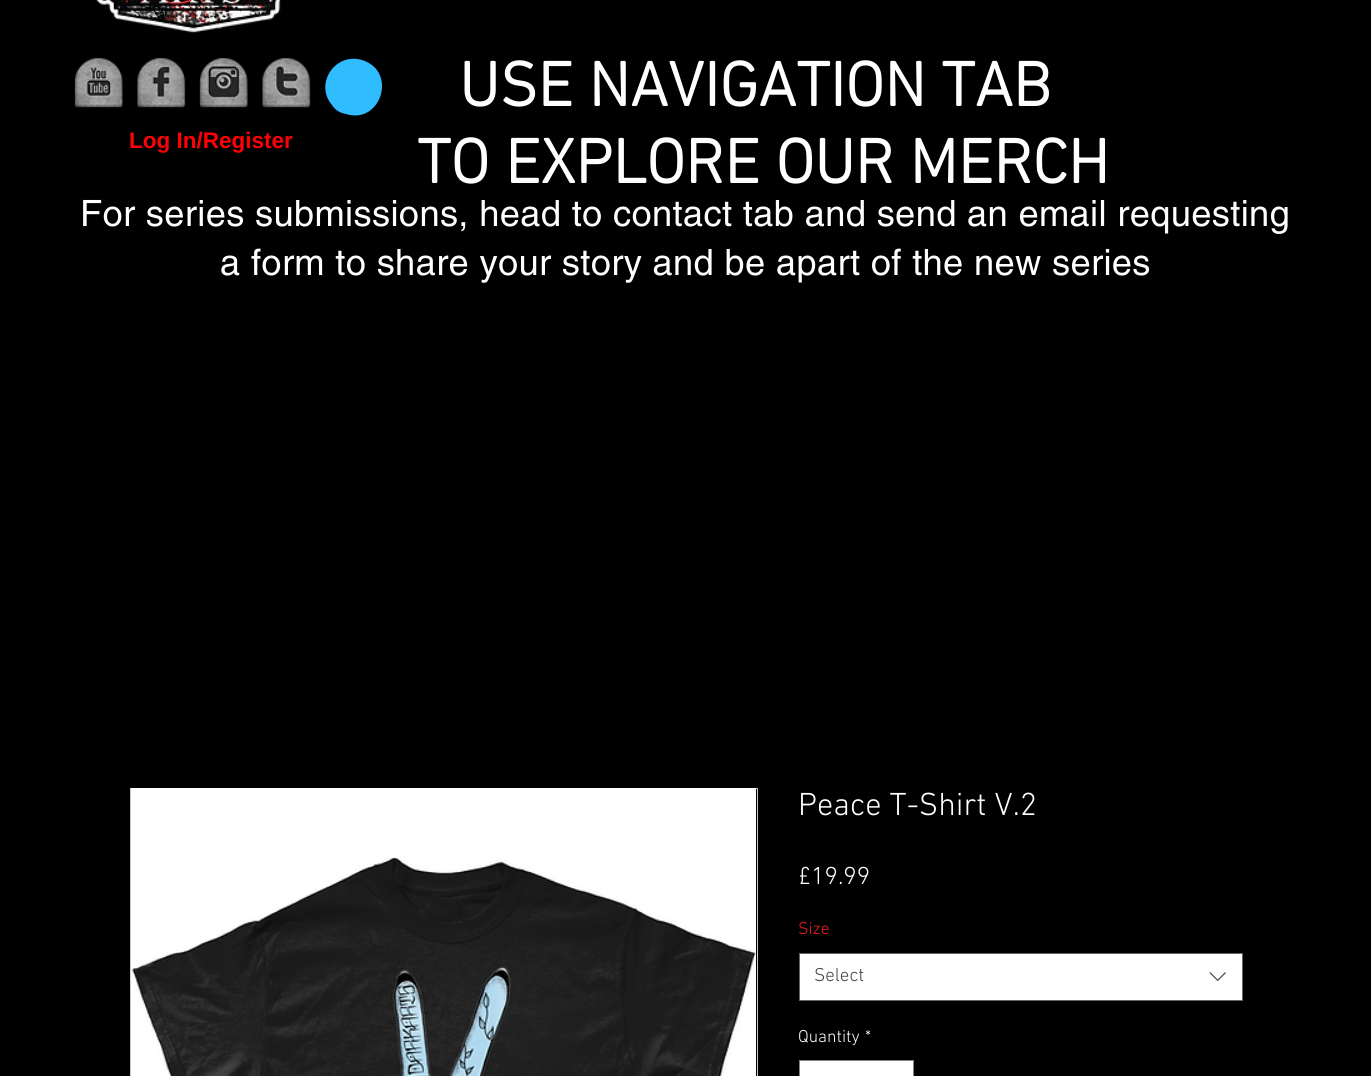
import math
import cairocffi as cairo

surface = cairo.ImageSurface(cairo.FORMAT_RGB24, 1371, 1076)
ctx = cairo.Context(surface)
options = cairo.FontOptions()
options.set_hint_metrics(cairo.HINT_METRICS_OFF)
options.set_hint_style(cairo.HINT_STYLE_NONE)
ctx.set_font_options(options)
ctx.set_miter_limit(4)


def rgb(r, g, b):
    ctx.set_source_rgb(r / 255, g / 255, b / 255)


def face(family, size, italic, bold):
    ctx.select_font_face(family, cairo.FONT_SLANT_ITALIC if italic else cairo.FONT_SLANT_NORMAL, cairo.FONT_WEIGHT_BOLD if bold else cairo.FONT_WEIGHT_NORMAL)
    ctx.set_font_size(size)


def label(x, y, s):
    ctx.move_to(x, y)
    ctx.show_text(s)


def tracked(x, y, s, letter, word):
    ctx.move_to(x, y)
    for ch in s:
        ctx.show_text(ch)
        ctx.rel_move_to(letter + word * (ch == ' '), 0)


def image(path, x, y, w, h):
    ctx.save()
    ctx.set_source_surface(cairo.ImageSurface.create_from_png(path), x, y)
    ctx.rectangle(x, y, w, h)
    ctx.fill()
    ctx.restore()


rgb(0, 0, 0)
ctx.paint()
image('image0.png', 96, 0, 185, 33)
image('image1.png', 74, 58, 49, 50)
image('image2.png', 137, 58, 49, 50)
image('image3.png', 199, 58, 49, 50)
image('image4.png', 262, 58, 49, 50)
rgb(48, 189, 255)
ctx.new_path()
ctx.move_to(362, 60)
ctx.curve_to(398, 71, 381, 125, 346, 114)
ctx.curve_to(340, 113, 335, 110, 332, 105)
ctx.curve_to(314, 84, 335, 52, 362, 60)
ctx.close_path()
ctx.fill()
face('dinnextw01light', 63.75, 0, 1)
rgb(255, 255, 255)
label(459, 106, 'USE NAVIGATION TAB')
label(417, 183, 'TO EXPLORE OUR MERCH')
face('Liberation Sans', 22.5, 0, 1)
rgb(255, 0, 6)
label(129, 148, 'Log In/Register')
face('helvetica', 36.25, 0, 0)
rgb(255, 255, 255)
tracked(80, 226, 'For series submissions, head to contact tab and send an email requesting', 0.35, 0)
tracked(220, 275, 'a form to share your story and be apart of the new series', 0.35, 0)
ctx.rectangle(130.5, 788.5, 627, 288)
rgb(204, 204, 204)
ctx.set_line_width(1)
ctx.stroke()
image('image5.png', 131, 788, 625, 288)
face('dinnextw01light Light', 32.5, 0, 0)
rgb(255, 255, 255)
label(798, 815, 'Peace T-Shirt V.2')
face('dinnextw01light Light', 25, 0, 0)
label(798, 884, '£19.99')
face('dinnextw01light Light', 17.5, 0, 0)
rgb(237, 28, 36)
label(798, 934, 'Size')
rgb(255, 255, 255)
ctx.rectangle(799.5, 953.5, 443, 47)
ctx.fill_preserve()
rgb(102, 102, 102)
ctx.stroke()
face('dinnextw01light Light', 19, 0, 0)
rgb(68, 68, 68)
label(814, 981, 'Select')
image('image6.png', 1209, 972, 17, 10)
face('dinnextw01light Light', 17.5, 0, 0)
rgb(255, 255, 255)
label(798, 1042, 'Quantity')
label(865, 1042, '*')
ctx.rectangle(799.5, 1060.5, 114, 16)
ctx.fill_preserve()
rgb(130, 130, 130)
ctx.stroke()
surface.write_to_png('render.png')
